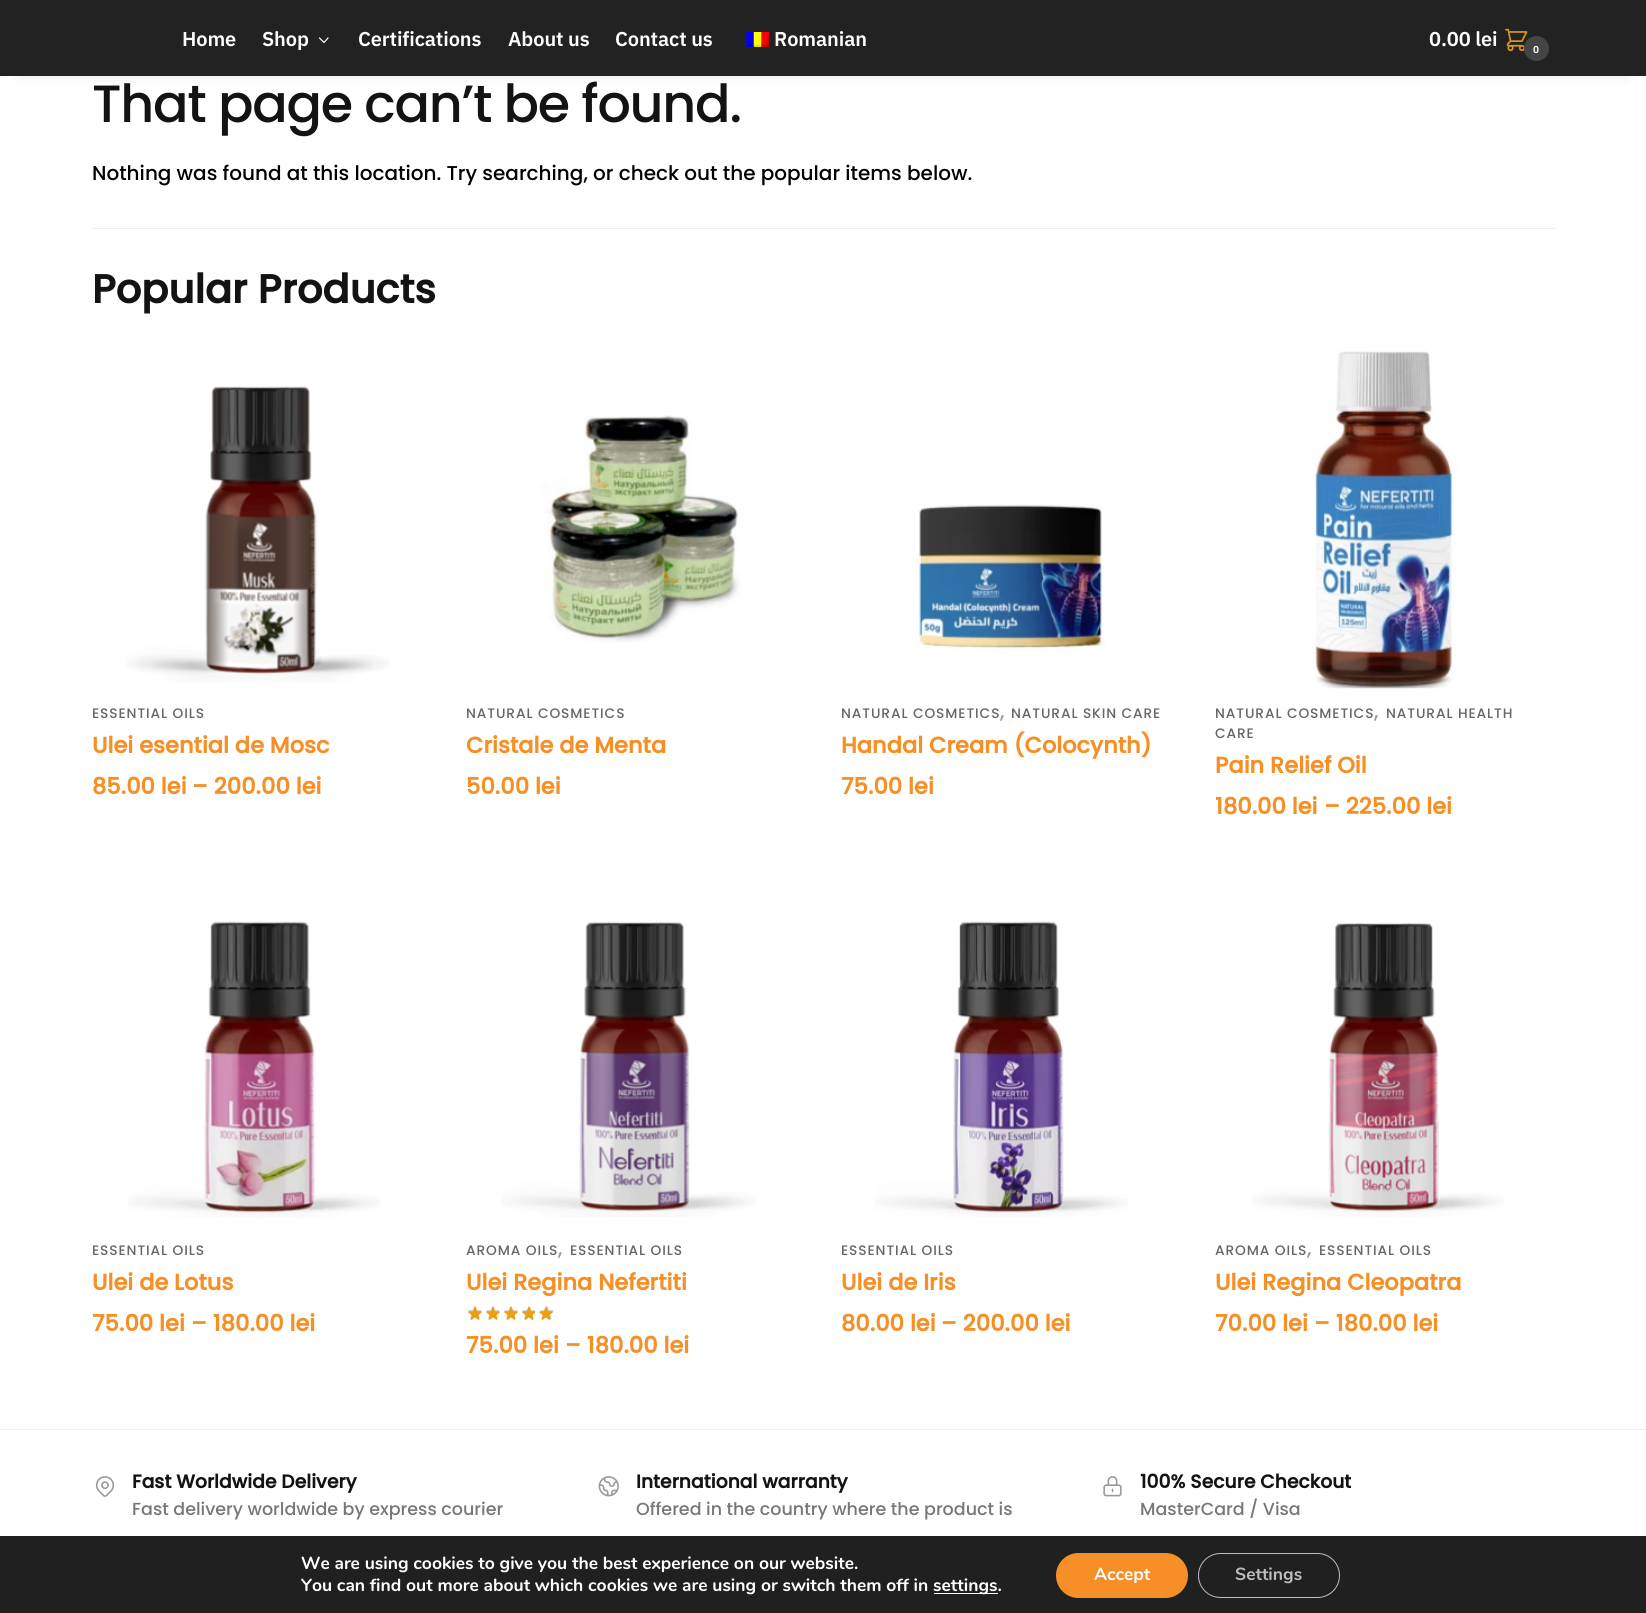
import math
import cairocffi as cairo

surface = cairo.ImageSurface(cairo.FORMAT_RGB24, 1646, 1613)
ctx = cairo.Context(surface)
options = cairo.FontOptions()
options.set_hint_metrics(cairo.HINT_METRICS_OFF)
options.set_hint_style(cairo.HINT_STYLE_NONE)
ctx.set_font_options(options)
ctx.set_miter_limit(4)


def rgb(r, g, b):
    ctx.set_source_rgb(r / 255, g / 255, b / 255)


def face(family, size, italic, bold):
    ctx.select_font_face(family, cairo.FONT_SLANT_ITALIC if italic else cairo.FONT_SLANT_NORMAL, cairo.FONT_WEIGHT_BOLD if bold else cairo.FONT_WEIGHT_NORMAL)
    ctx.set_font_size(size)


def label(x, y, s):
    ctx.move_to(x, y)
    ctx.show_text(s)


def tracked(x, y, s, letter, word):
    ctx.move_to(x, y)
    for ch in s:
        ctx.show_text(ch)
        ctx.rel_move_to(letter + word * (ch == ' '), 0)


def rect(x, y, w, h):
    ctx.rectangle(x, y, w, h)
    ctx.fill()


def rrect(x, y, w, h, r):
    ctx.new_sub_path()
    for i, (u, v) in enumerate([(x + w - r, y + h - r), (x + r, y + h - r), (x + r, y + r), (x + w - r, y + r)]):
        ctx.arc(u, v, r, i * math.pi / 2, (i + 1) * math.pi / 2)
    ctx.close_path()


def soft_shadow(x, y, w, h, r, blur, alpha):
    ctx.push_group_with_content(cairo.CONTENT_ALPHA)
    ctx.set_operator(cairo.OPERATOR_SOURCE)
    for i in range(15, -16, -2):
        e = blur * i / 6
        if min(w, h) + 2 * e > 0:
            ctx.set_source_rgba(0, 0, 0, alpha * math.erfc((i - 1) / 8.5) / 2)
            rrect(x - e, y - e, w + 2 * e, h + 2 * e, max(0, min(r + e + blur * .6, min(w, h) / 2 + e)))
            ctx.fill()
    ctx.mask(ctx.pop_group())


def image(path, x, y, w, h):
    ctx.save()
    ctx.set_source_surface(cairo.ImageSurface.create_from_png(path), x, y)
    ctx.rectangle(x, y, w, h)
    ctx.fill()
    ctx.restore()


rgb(255, 255, 255)
ctx.paint()
rgb(0, 0, 0)
soft_shadow(19, 38, 1609, 38, 0, 6, 0.1)
rgb(34, 34, 34)
rect(0, 0, 1646, 76)
face('IBM Plex Sans SemiBold', 20, 0, 0)
rgb(255, 255, 255)
tracked(182, 46, 'Home', -0.1, 0)
tracked(262, 46, 'Shop', -0.1, 0)
ctx.new_path()
ctx.move_to(328, 38)
ctx.line_to(324, 42.5)
ctx.line_to(319.5, 38)
ctx.set_line_width(1.2)
ctx.set_line_cap(cairo.LINE_CAP_ROUND)
ctx.set_line_join(cairo.LINE_JOIN_ROUND)
ctx.stroke()
tracked(358, 46, 'Certifications', -0.1, 0)
tracked(508, 46, 'About us', -0.1, 0)
tracked(615, 46, 'Contact us', -0.1, 0)
image('image0.png', 746, 32, 23, 15)
tracked(774, 46, 'Romanian', -0.1, 0)
tracked(1429, 46, '0.00 lei', -0.1, 0)
image('image1.png', 1505, 28, 23, 24)
rgb(68, 68, 68)
ctx.arc(1536.5, 48.5, 12, 0, 2 * math.pi)
ctx.fill_preserve()
ctx.set_line_width(1)
ctx.set_line_cap(cairo.LINE_CAP_BUTT)
ctx.set_line_join(cairo.LINE_JOIN_MITER)
ctx.stroke()
face('IBM Plex Sans SemiBold', 10, 0, 0)
rgb(255, 255, 255)
tracked(1533, 53, '0', -0.1, 0)
face('Poppins Medium', 52.4, 0, 0)
rgb(19, 19, 21)
tracked(92, 122, 'That page can’t be found.', -1.25, 0)
face('Poppins Medium', 20, 0, 0)
rgb(0, 0, 0)
label(92, 180, 'Nothing was found at this location. Try searching, or check out the popular items below.')
rgb(238, 238, 238)
rect(93, 228, 1462, 1)
face('Poppins', 40, 0, 1)
rgb(19, 19, 21)
label(92, 303, 'Popular Products')
image('image2.png', 126, 386, 264, 297)
face('Poppins Medium', 13.75, 0, 0)
rgb(102, 102, 102)
tracked(92, 718, 'ESSENTIAL OILS', 0.9, 0)
face('Poppins', 22.5, 0, 1)
rgb(246, 143, 38)
label(92, 753, 'Ulei esential de Mosc')
label(92, 794, '85.00 lei')
label(192, 794, '– 200.00 lei')
image('image3.png', 539, 415, 204, 228)
face('Poppins Medium', 13.75, 0, 0)
rgb(102, 102, 102)
tracked(466, 718, 'NATURAL COSMETICS', 0.9, 0)
face('Poppins', 22.5, 0, 1)
rgb(246, 143, 38)
label(466, 753, 'Cristale de Menta')
label(466, 794, '50.00 lei')
image('image4.png', 913, 504, 193, 145)
face('Poppins Medium', 13.75, 0, 0)
rgb(102, 102, 102)
tracked(841, 718, 'NATURAL COSMETICS', 0.9, 0)
face('Poppins Medium', 20, 0, 0)
rgb(153, 153, 153)
tracked(1000, 718, ',', 0.9, 0)
face('Poppins Medium', 13.75, 0, 0)
rgb(102, 102, 102)
tracked(1011, 718, 'NATURAL SKIN CARE', 0.9, 0)
face('Poppins', 22.5, 0, 1)
rgb(246, 143, 38)
label(841, 753, 'Handal Cream (Colocynth)')
label(841, 794, '75.00 lei')
image('image5.png', 1314, 351, 144, 338)
face('Poppins Medium', 13.75, 0, 0)
rgb(102, 102, 102)
tracked(1215, 718, 'NATURAL COSMETICS', 0.9, 0)
face('Poppins Medium', 20, 0, 0)
rgb(153, 153, 153)
tracked(1374, 718, ',', 0.9, 0)
face('Poppins Medium', 13.75, 0, 0)
rgb(102, 102, 102)
tracked(1386, 718, 'NATURAL HEALTH', 0.9, 0)
tracked(1215, 738, 'CARE', 0.9, 0)
face('Poppins', 22.5, 0, 1)
rgb(246, 143, 38)
label(1215, 773, 'Pain Relief Oil')
label(1215, 814, '180.00 lei')
label(1324, 814, '– 225.00 lei')
image('image6.png', 128, 921, 253, 297)
face('Poppins Medium', 13.75, 0, 0)
rgb(102, 102, 102)
tracked(92, 1255, 'ESSENTIAL OILS', 0.9, 0)
face('Poppins', 22.5, 0, 1)
rgb(246, 143, 38)
label(92, 1290, 'Ulei de Lotus')
label(92, 1331, '75.00 lei')
label(191, 1331, '– 180.00 lei')
image('image7.png', 501, 921, 256, 296)
face('Poppins Medium', 13.75, 0, 0)
rgb(102, 102, 102)
tracked(466, 1255, 'AROMA OILS', 0.9, 0)
face('Poppins Medium', 20, 0, 0)
rgb(153, 153, 153)
tracked(558, 1255, ',', 0.9, 0)
face('Poppins Medium', 13.75, 0, 0)
rgb(102, 102, 102)
tracked(570, 1255, 'ESSENTIAL OILS', 0.9, 0)
face('Poppins', 22.5, 0, 1)
rgb(246, 143, 38)
label(466, 1290, 'Ulei Regina Nefertiti')
image('image8.png', 468, 1306, 86, 13)
image('image9.png', 468, 1307, 85, 13)
label(466, 1353, '75.00 lei')
label(565, 1353, '– 180.00 lei')
image('image10.png', 875, 921, 253, 296)
face('Poppins Medium', 13.75, 0, 0)
rgb(102, 102, 102)
tracked(841, 1255, 'ESSENTIAL OILS', 0.9, 0)
face('Poppins', 22.5, 0, 1)
rgb(246, 143, 38)
label(841, 1290, 'Ulei de Iris')
label(841, 1331, '80.00 lei')
label(941, 1331, '– 200.00 lei')
image('image11.png', 1251, 922, 253, 295)
face('Poppins Medium', 13.75, 0, 0)
rgb(102, 102, 102)
tracked(1215, 1255, 'AROMA OILS', 0.9, 0)
face('Poppins Medium', 20, 0, 0)
rgb(153, 153, 153)
tracked(1307, 1255, ',', 0.9, 0)
face('Poppins Medium', 13.75, 0, 0)
rgb(102, 102, 102)
tracked(1319, 1255, 'ESSENTIAL OILS', 0.9, 0)
face('Poppins', 22.5, 0, 1)
rgb(246, 143, 38)
label(1215, 1290, 'Ulei Regina Cleopatra')
label(1215, 1331, '70.00 lei')
label(1314, 1331, '– 180.00 lei')
rgb(238, 238, 238)
rect(0, 1429, 1646, 1)
face('Poppins', 18.75, 0, 1)
rgb(19, 19, 21)
label(132, 1488, 'Fast Worldwide Delivery')
image('image12.png', 95, 1476, 20, 21)
face('Poppins Medium', 17.5, 0, 0)
rgb(119, 119, 119)
label(132, 1515, 'Fast delivery worldwide by express courier')
face('Poppins', 18.75, 0, 1)
rgb(19, 19, 21)
label(636, 1488, 'International warranty')
image('image13.png', 598, 1476, 21, 21)
face('Poppins Medium', 17.5, 0, 0)
rgb(119, 119, 119)
label(636, 1515, 'Offered in the country where the product is')
face('Poppins', 18.75, 0, 1)
rgb(19, 19, 21)
label(1140, 1488, '100% Secure Checkout')
image('image14.png', 1103, 1476, 19, 21)
face('Poppins Medium', 17.5, 0, 0)
rgb(119, 119, 119)
label(1140, 1515, 'MasterCard / Visa')
rgb(32, 32, 32)
rect(0, 1536, 1646, 77)
face('Nunito', 17.5, 0, 1)
rgb(255, 255, 255)
label(301, 1569, 'We are using cookies to give you the best experience on our website.')
label(301, 1591, 'You can find out more about which cookies we are using or switch them off in')
rect(934, 1593, 64, 1)
label(933, 1591, 'settings.')
rgb(246, 143, 39)
rrect(1056, 1553, 132, 45, 22.5)
ctx.fill()
rgb(255, 255, 255)
label(1094, 1580, 'Accept')
rrect(1198.5, 1553.5, 141, 44, 22)
rgb(188, 188, 188)
ctx.stroke()
label(1235, 1580, 'Settings')
surface.write_to_png('render.png')
